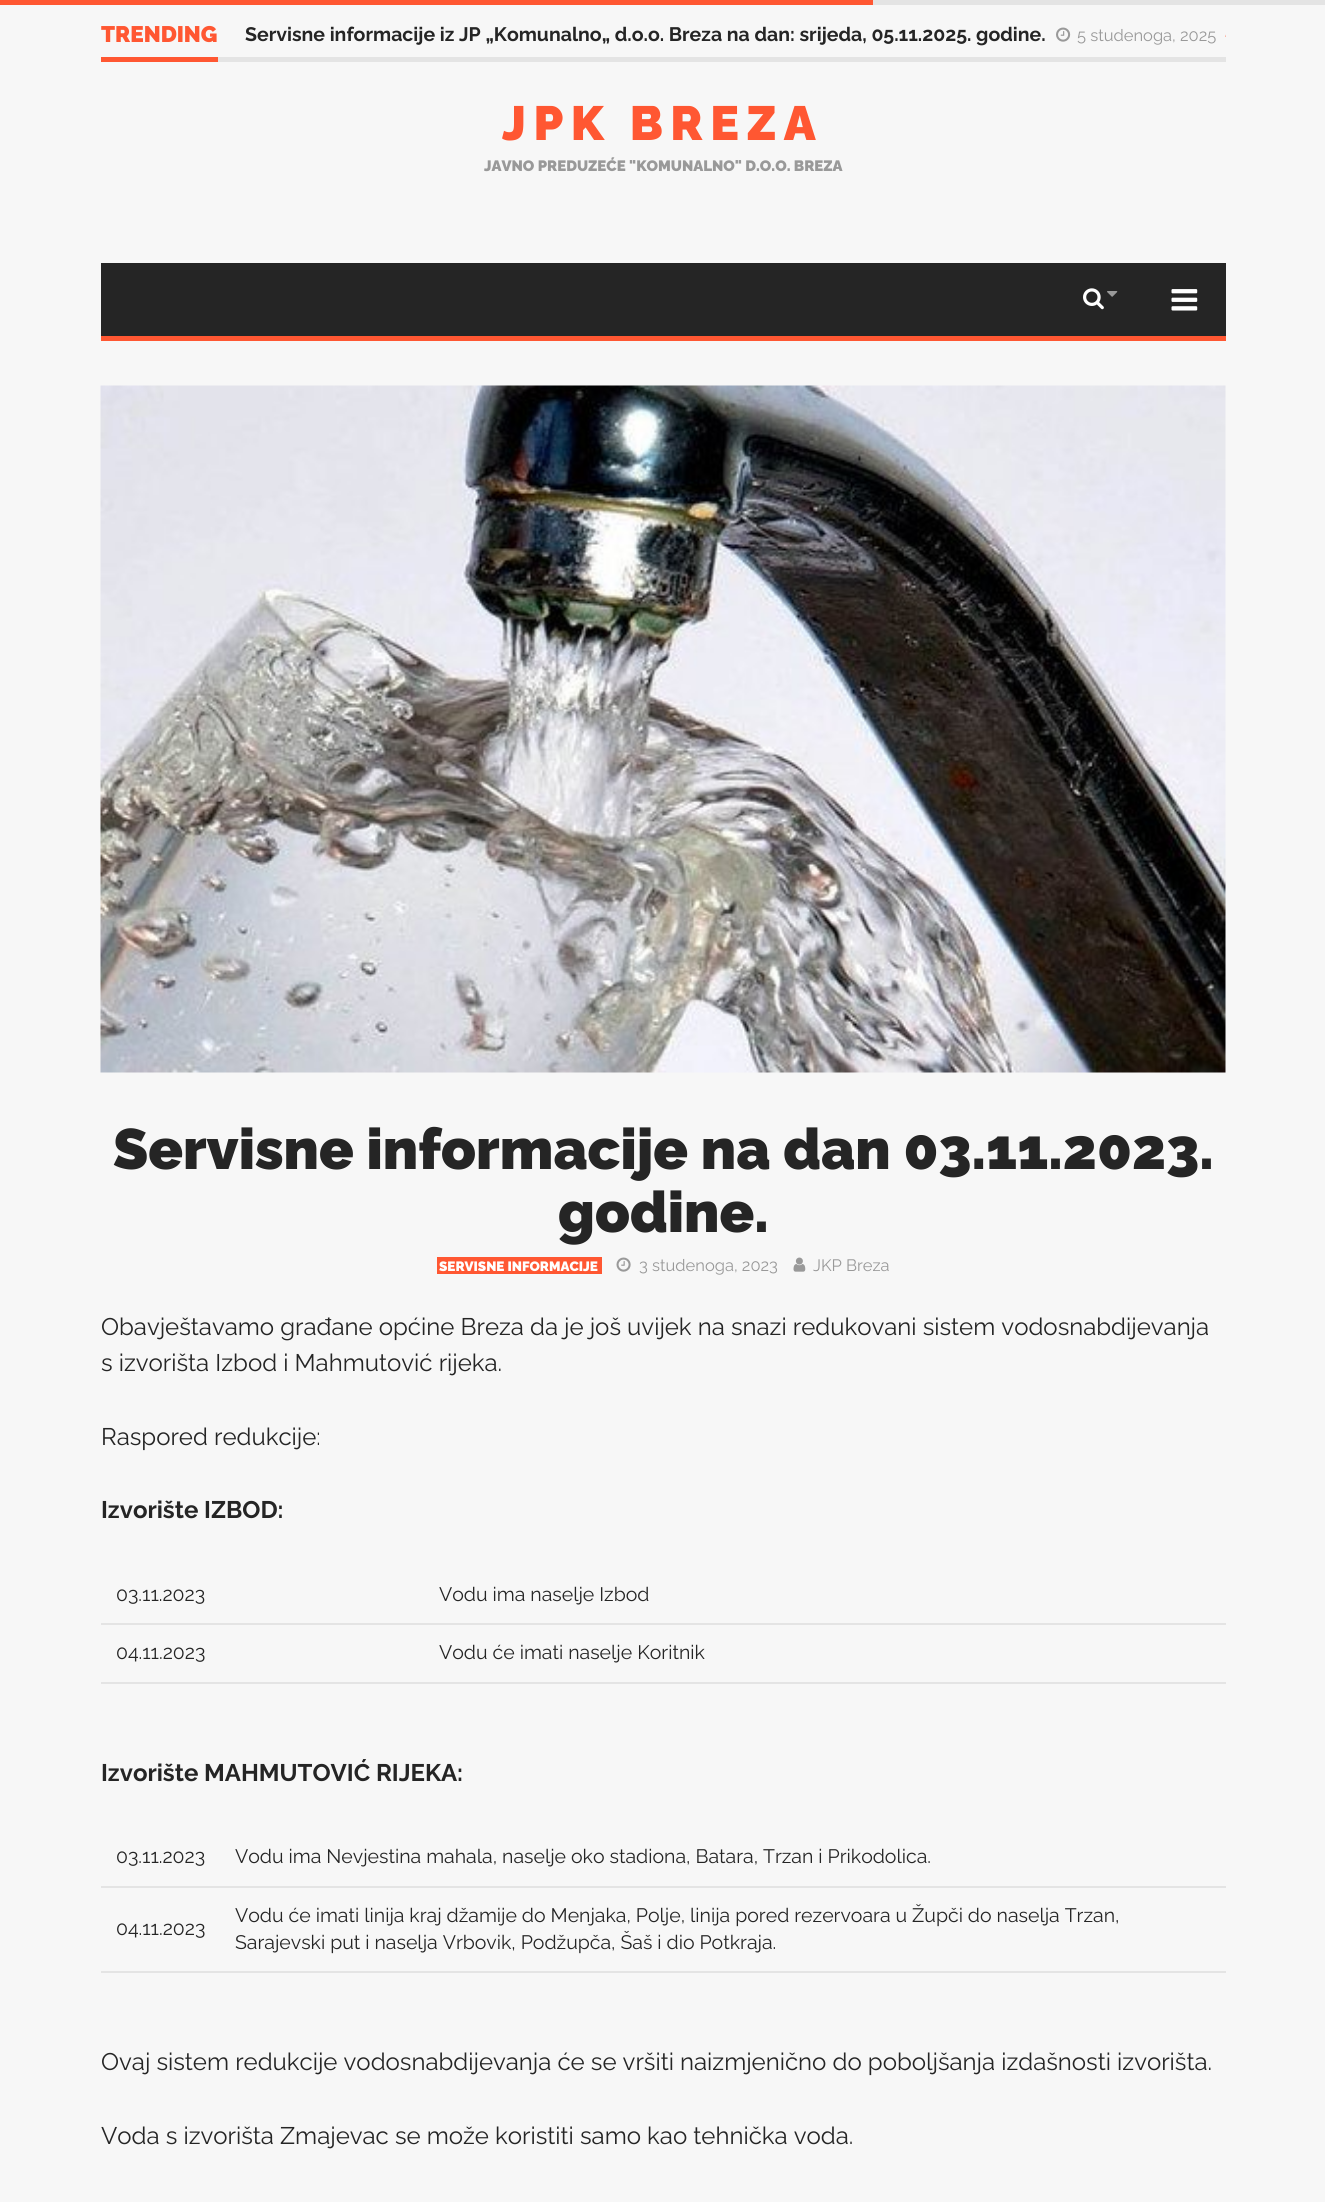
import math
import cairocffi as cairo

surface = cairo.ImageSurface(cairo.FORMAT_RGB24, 1325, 2202)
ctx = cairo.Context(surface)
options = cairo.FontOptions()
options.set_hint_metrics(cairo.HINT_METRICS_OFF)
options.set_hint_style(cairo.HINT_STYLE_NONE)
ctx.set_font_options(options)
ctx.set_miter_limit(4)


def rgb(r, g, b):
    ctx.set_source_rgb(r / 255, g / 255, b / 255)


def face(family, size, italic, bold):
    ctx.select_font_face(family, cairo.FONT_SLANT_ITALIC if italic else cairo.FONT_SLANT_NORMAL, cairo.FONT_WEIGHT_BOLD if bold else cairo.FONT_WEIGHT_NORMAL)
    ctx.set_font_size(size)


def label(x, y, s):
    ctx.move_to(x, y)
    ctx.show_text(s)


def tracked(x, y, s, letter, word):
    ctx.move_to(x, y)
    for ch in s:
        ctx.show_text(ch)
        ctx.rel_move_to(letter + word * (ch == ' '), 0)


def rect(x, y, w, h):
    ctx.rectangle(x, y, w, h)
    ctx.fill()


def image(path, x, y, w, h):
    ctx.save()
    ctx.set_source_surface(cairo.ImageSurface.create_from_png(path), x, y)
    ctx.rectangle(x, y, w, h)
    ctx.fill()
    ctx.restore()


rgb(247, 247, 247)
ctx.paint()
rgb(228, 228, 228)
rect(873, 0, 452, 5)
rgb(255, 87, 50)
rect(0, 0, 873, 5)
rgb(228, 228, 228)
rect(218, 57, 1008, 5)
rgb(255, 87, 50)
rect(101, 57, 117, 5)
face('Raleway Black', 22.5, 0, 0)
label(101, 42, 'TRENDING')
face('Raleway', 19.5, 0, 1)
rgb(37, 37, 37)
label(245, 41, 'Servisne informacije iz JP „Komunalno„ d.o.o. Breza na dan: srijeda, 05.11.2025. godine.')
image('image0.png', 1056, 27, 15, 15)
face('Raleway', 16.5, 0, 0)
rgb(153, 153, 153)
label(1077, 41, '5 studenoga, 2025')
image('image1.png', 1225, 34, 1, 3)
face('Raleway Black', 48, 0, 0)
rgb(255, 87, 50)
tracked(502, 140, 'JPK BREZA', 7.5, 0)
face('Raleway Black', 15, 0, 0)
rgb(153, 153, 153)
label(484, 171, 'JAVNO PREDUZEĆE "KOMUNALNO" D.O.O. BREZA')
rgb(255, 87, 50)
ctx.new_path()
ctx.move_to(101, 336)
ctx.line_to(101, 341)
ctx.line_to(1226, 341)
ctx.line_to(1226, 267)
ctx.line_to(1226, 336)
ctx.close_path()
ctx.fill()
rgb(37, 37, 37)
rect(101, 263, 1125, 73)
image('image2.png', 1083, 288, 21, 22)
image('image3.png', 1107, 291, 11, 6)
image('image4.png', 1171, 289, 27, 22)
image('image5.png', 100, 385, 1126, 688)
face('Raleway Black', 57, 0, 0)
label(113, 1169, 'Servisne informacije na dan 03.11.2023.')
label(558, 1232, 'godine.')
rgb(255, 87, 50)
rect(437, 1257, 165, 17)
face('Raleway Black', 13.5, 0, 0)
rgb(255, 255, 255)
label(439, 1271, 'SERVISNE INFORMACIJE')
image('image6.png', 616, 1257, 15, 15)
face('Raleway', 16.5, 0, 0)
rgb(153, 153, 153)
label(639, 1271, '3 studenoga, 2023')
image('image7.png', 793, 1257, 13, 15)
label(813, 1271, 'JKP Breza')
face('Raleway', 24, 0, 0)
rgb(37, 37, 37)
label(101, 1335, 'Obavještavamo građane općine Breza da je još uvijek na snazi redukovani sistem vodosnabdijevanja')
label(101, 1371, 's izvorišta Izbod i Mahmutović rijeka.')
label(101, 1445, 'Raspored redukcije:')
face('Raleway', 24, 0, 1)
label(101, 1518, 'Izvorište IZBOD:')
face('Raleway', 19.5, 0, 0)
label(116, 1601, '03.11.2023')
rgb(228, 228, 228)
rect(101, 1623, 1125, 2)
rgb(37, 37, 37)
label(439, 1601, 'Vodu ima naselje Izbod')
label(116, 1659, '04.11.2023')
rgb(228, 228, 228)
rect(101, 1682, 1125, 2)
rgb(37, 37, 37)
label(439, 1659, 'Vodu će imati naselje Koritnik')
face('Raleway', 24, 0, 1)
label(101, 1781, 'Izvorište MAHMUTOVIĆ RIJEKA:')
face('Raleway', 19.5, 0, 0)
label(116, 1863, '03.11.2023')
rgb(228, 228, 228)
rect(101, 1886, 1125, 2)
rgb(37, 37, 37)
label(235, 1863, 'Vodu ima Nevjestina mahala, naselje oko stadiona, Batara, Trzan i Prikodolica.')
label(116, 1935, '04.11.2023')
rgb(228, 228, 228)
rect(101, 1971, 1125, 2)
rgb(37, 37, 37)
label(235, 1922, 'Vodu će imati linija kraj džamije do Menjaka, Polje, linija pored rezervoara u Župči do naselja Trzan,')
label(235, 1949, 'Sarajevski put i naselja Vrbovik, Podžupča, Šaš i dio Potkraja.')
face('Raleway', 24, 0, 0)
label(101, 2070, 'Ovaj sistem redukcije vodosnabdijevanja će se vršiti naizmjenično do poboljšanja izdašnosti izvorišta.')
label(101, 2144, 'Voda s izvorišta Zmajevac se može koristiti samo kao tehnička voda.')
surface.write_to_png('render.png')
